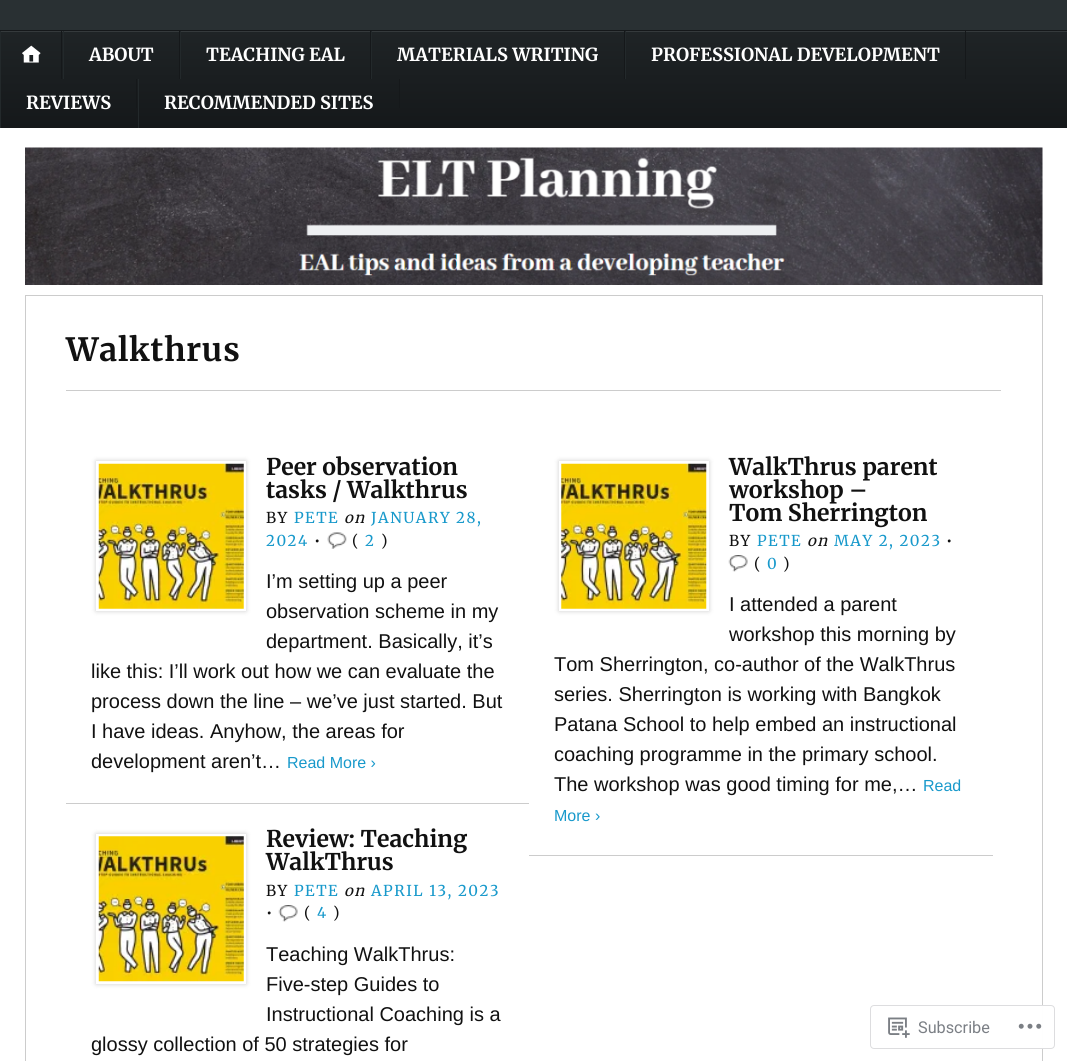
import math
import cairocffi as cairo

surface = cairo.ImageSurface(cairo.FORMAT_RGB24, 1067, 1061)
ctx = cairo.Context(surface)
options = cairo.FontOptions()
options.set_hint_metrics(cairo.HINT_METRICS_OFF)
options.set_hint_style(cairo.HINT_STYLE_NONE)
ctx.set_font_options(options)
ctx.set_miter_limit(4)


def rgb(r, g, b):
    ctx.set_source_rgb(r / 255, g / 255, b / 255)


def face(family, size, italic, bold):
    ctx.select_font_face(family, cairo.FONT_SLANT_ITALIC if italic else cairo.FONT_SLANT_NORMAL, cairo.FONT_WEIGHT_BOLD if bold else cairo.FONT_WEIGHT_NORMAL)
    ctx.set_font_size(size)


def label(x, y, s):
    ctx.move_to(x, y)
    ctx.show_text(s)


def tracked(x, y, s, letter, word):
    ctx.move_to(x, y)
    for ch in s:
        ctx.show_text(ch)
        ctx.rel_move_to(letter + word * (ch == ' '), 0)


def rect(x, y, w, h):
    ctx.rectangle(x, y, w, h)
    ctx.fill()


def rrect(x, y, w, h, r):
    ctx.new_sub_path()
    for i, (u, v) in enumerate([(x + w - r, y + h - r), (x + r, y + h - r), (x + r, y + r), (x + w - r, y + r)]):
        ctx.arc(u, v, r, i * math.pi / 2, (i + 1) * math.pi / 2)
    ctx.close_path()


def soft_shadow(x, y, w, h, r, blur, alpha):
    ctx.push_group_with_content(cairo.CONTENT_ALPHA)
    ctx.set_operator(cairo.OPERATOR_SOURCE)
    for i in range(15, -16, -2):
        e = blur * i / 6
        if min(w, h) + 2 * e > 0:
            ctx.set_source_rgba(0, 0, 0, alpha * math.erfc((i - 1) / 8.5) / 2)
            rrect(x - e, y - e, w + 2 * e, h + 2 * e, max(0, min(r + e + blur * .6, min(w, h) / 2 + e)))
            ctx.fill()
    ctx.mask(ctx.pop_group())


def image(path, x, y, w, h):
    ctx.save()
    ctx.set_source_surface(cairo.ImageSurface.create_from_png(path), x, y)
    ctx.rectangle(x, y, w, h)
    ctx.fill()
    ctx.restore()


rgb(255, 255, 255)
ctx.paint()
rgb(41, 48, 51)
rect(0, 0, 1067, 30)
gradient = cairo.LinearGradient(534, -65, 534, 31)
gradient.add_color_stop_rgba(0, 0.122, 0.141, 0.149, 1)
gradient.add_color_stop_rgba(1, 0.082, 0.094, 0.102, 1)
ctx.set_source(gradient)
rect(0, 30, 1067, 1)
gradient = cairo.LinearGradient(534, 31, 534, 128)
gradient.add_color_stop_rgba(0, 0.122, 0.141, 0.149, 1)
gradient.add_color_stop_rgba(1, 0.082, 0.094, 0.102, 1)
ctx.set_source(gradient)
rect(1, 32, 1066, 96)
ctx.save()
ctx.rectangle(0, 31, 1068, 97)
ctx.clip()
rgb(53, 58, 60)
ctx.set_fill_rule(cairo.FILL_RULE_EVEN_ODD)
ctx.new_path()
ctx.move_to(-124, -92)
ctx.line_to(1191, -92)
ctx.line_to(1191, 251)
ctx.line_to(-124, 251)
ctx.close_path()
ctx.move_to(0, 32)
ctx.line_to(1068, 32)
ctx.curve_to(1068, 32, 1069, 33, 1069, 34)
ctx.line_to(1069, 130)
ctx.curve_to(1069, 131, 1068, 131, 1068, 131)
ctx.line_to(0, 131)
ctx.curve_to(-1, 131, -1, 131, -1, 130)
ctx.line_to(-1, 34)
ctx.curve_to(-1, 33, -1, 32, 0, 32)
ctx.close_path()
ctx.fill()
ctx.restore()
rgb(21, 24, 26)
rect(61, 31, 1, 48)
rgb(35, 41, 43)
rect(0, 31, 1, 97)
image('image0.png', 22, 45, 19, 18)
rgb(21, 24, 26)
rect(179, 31, 1, 48)
rgb(35, 41, 43)
rect(63, 31, 1, 48)
face('Merriweather', 18, 0, 1)
rgb(255, 255, 255)
label(89, 61, 'ABOUT')
rgb(21, 24, 26)
rect(370, 31, 1, 48)
rgb(35, 41, 43)
rect(180, 31, 1, 48)
rgb(255, 255, 255)
label(206, 61, 'TEACHING EAL')
rgb(21, 24, 26)
rect(624, 31, 1, 48)
rgb(35, 41, 43)
rect(371, 31, 1, 48)
rgb(255, 255, 255)
label(397, 61, 'MATERIALS WRITING')
rgb(21, 24, 26)
rect(965, 31, 1, 48)
rgb(35, 41, 43)
rect(625, 31, 1, 48)
rgb(255, 255, 255)
label(651, 61, 'PROFESSIONAL DEVELOPMENT')
rgb(21, 24, 26)
rect(136, 79, 1, 29)
rgb(255, 255, 255)
label(26, 109, 'REVIEWS')
rgb(21, 24, 26)
rect(399, 79, 1, 29)
rgb(35, 41, 43)
rect(138, 79, 1, 49)
rgb(255, 255, 255)
label(164, 109, 'RECOMMENDED SITES')
image('image1.png', 25, 147, 1018, 138)
ctx.rectangle(25.5, 295.5, 1017, 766)
rgb(204, 204, 204)
ctx.set_line_width(1)
ctx.stroke()
rect(66, 390, 935, 1)
face('Merriweather', 32, 0, 1)
rgb(17, 17, 17)
tracked(66, 361, 'Walkthrus', 0.75, 0)
rgb(204, 204, 204)
rect(66, 803, 463, 1)
rgb(0, 0, 0)
soft_shadow(96, 461, 150, 150, 0, 2.5, 0.2)
ctx.rectangle(97.5, 462.5, 147, 147)
rgb(255, 255, 255)
ctx.set_line_width(3)
ctx.stroke()
image('image2.png', 98, 463, 146, 146)
face('Merriweather', 23, 0, 1)
rgb(17, 17, 17)
label(266, 475, 'Peer observation')
label(266, 498, 'tasks / Walkthrus')
face('Merriweather', 15, 0, 0)
tracked(266, 523, 'BY', 1.5, 0)
rgb(24, 153, 203)
tracked(294, 523, 'PETE', 1.5, 0)
face('Merriweather', 15, 1, 0)
rgb(17, 17, 17)
tracked(344, 523, 'on', 1.5, 0)
face('Merriweather', 15, 0, 0)
rgb(24, 153, 203)
tracked(371, 523, 'JANUARY 28,', 1.5, 0)
tracked(266, 546, '2024', 1.5, 0)
rgb(17, 17, 17)
tracked(314, 546, '•', 1.5, 0)
image('image3.png', 327, 532, 20, 17)
tracked(352, 546, '(', 1.5, 0)
rgb(24, 153, 203)
tracked(365, 546, '2', 1.5, 0)
rgb(17, 17, 17)
tracked(381, 546, ')', 1.5, 0)
face('Liberation Sans', 20, 0, 0)
label(266, 588, 'I’m setting up a peer')
label(266, 618, 'observation scheme in my')
label(266, 648, 'department. Basically, it’s')
label(91, 678, 'like this: I’ll work out how we can evaluate the')
label(91, 708, 'process down the line – we’ve just started. But')
label(91, 738, 'I have ideas. Anyhow, the areas for')
label(91, 768, 'development aren’t…')
face('Liberation Sans', 16, 0, 0)
rgb(24, 153, 203)
label(287, 768, 'Read More ›')
rgb(204, 204, 204)
rect(529, 855, 464, 1)
rgb(0, 0, 0)
soft_shadow(559, 461, 150, 150, 0, 2.5, 0.2)
ctx.rectangle(560.5, 462.5, 147, 147)
rgb(255, 255, 255)
ctx.stroke()
image('image4.png', 561, 463, 146, 146)
face('Merriweather', 23, 0, 1)
rgb(17, 17, 17)
label(729, 475, 'WalkThrus parent')
label(729, 498, 'workshop –')
label(729, 521, 'Tom Sherrington')
face('Merriweather', 15, 0, 0)
tracked(729, 546, 'BY', 1.5, 0)
rgb(24, 153, 203)
tracked(757, 546, 'PETE', 1.5, 0)
face('Merriweather', 15, 1, 0)
rgb(17, 17, 17)
tracked(807, 546, 'on', 1.5, 0)
face('Merriweather', 15, 0, 0)
rgb(24, 153, 203)
tracked(834, 546, 'MAY 2, 2023', 1.5, 0)
rgb(17, 17, 17)
tracked(946, 546, '•', 1.5, 0)
image('image5.png', 728, 555, 20, 17)
tracked(754, 569, '(', 1.5, 0)
rgb(24, 153, 203)
tracked(767, 569, '0', 1.5, 0)
rgb(17, 17, 17)
tracked(783, 569, ')', 1.5, 0)
face('Liberation Sans', 20, 0, 0)
label(729, 611, 'I attended a parent')
label(729, 641, 'workshop this morning by')
label(554, 671, 'Tom Sherrington, co-author of the WalkThrus')
label(554, 701, 'series. Sherrington is working with Bangkok')
label(554, 731, 'Patana School to help embed an instructional')
label(554, 761, 'coaching programme in the primary school.')
label(554, 791, 'The workshop was good timing for me,…')
face('Liberation Sans', 16, 0, 0)
rgb(24, 153, 203)
label(923, 791, 'Read')
label(554, 821, 'More ›')
rgb(0, 0, 0)
soft_shadow(96, 834, 150, 150, 0, 2.5, 0.2)
ctx.rectangle(97.5, 835.5, 147, 147)
rgb(255, 255, 255)
ctx.stroke()
image('image6.png', 98, 836, 146, 146)
face('Merriweather', 23, 0, 1)
rgb(17, 17, 17)
label(266, 847, 'Review: Teaching')
label(266, 870, 'WalkThrus')
face('Merriweather', 15, 0, 0)
tracked(266, 896, 'BY', 1.5, 0)
rgb(24, 153, 203)
tracked(294, 896, 'PETE', 1.5, 0)
face('Merriweather', 15, 1, 0)
rgb(17, 17, 17)
tracked(344, 896, 'on', 1.5, 0)
face('Merriweather', 15, 0, 0)
rgb(24, 153, 203)
tracked(371, 896, 'APRIL 13, 2023', 1.5, 0)
rgb(17, 17, 17)
tracked(266, 918, '•', 1.5, 0)
image('image5.png', 278, 905, 20, 17)
tracked(304, 918, '(', 1.5, 0)
rgb(24, 153, 203)
tracked(317, 918, '4', 1.5, 0)
rgb(17, 17, 17)
tracked(333, 918, ')', 1.5, 0)
face('Liberation Sans', 20, 0, 0)
label(266, 961, 'Teaching WalkThrus:')
label(266, 991, 'Five-step Guides to')
label(266, 1021, 'Instructional Coaching is a')
label(91, 1051, 'glossy collection of 50 strategies for')
ctx.set_source_rgba(1, 1, 1, 0.98)
rrect(870.5, 1005.5, 184, 43, 3.5)
ctx.fill_preserve()
rgb(221, 221, 223)
ctx.set_line_width(1)
ctx.stroke()
image('image7.png', 888, 1017, 22, 21)
face('Roboto', 16.25, 0, 0)
rgb(123, 127, 133)
label(918, 1033, 'Subscribe')
image('image8.png', 1018, 1023, 24, 6)
surface.write_to_png('render.png')
